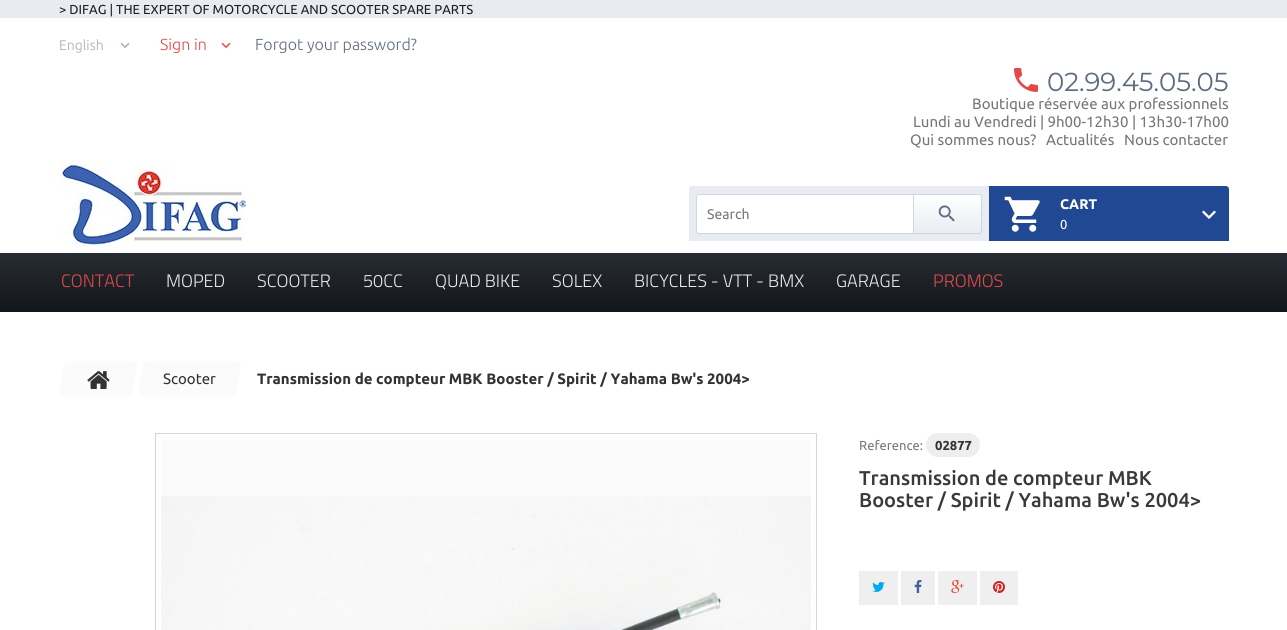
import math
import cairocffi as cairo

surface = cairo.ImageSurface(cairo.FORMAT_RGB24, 1287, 630)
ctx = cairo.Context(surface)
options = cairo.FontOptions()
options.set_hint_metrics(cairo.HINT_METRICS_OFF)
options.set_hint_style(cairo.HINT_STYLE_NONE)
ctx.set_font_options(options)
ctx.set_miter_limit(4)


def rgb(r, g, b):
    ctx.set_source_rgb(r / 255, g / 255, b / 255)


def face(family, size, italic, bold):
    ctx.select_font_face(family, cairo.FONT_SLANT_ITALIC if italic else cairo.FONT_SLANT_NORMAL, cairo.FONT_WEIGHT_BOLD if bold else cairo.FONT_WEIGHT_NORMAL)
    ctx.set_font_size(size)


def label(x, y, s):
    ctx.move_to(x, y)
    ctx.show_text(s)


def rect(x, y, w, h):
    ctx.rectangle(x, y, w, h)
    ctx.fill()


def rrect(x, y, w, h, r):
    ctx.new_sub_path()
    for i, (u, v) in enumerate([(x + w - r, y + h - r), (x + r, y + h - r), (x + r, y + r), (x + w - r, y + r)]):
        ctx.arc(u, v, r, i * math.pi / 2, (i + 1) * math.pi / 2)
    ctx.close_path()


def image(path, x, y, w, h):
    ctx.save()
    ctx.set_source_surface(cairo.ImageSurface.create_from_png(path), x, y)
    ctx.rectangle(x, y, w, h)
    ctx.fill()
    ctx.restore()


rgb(255, 255, 255)
ctx.paint()
rgb(232, 235, 241)
rect(0, 0, 1287, 18)
face('Ubuntu', 13, 0, 0)
rgb(28, 31, 37)
label(59, 14, '> DIFAG | THE EXPERT OF MOTORCYCLE AND SCOOTER SPARE PARTS')
face('Ubuntu Light', 14, 0, 0)
rgb(164, 173, 187)
label(59, 50, 'English')
image('image0.png', 120, 42, 10, 6)
face('Ubuntu Light', 16, 0, 0)
rgb(226, 74, 74)
label(160, 50, 'Sign in')
image('image1.png', 221, 42, 10, 7)
rgb(93, 106, 127)
label(255, 50, 'Forgot your password?')
image('image2.png', 1014, 68, 24, 24)
face('Montserrat', 26, 0, 0)
label(1047, 91, '02.99.45.05.05')
face('Ubuntu', 15, 0, 0)
rgb(119, 119, 119)
label(972, 109, 'Boutique réservée aux professionnels')
label(913, 127, 'Lundi au Vendredi | 9h00-12h30 | 13h30-17h00')
label(910, 145, 'Qui sommes nous?')
label(1046, 145, 'Actualités')
label(1124, 145, 'Nous contacter')
image('image3.png', 59, 161, 187, 88)
rgb(232, 235, 241)
ctx.new_path()
ctx.move_to(692, 186)
ctx.line_to(989, 186)
ctx.line_to(989, 241)
ctx.line_to(689, 241)
ctx.line_to(689, 189)
ctx.curve_to(689, 187.5, 690.5, 186, 692, 186)
ctx.close_path()
ctx.fill()
rgb(255, 255, 255)
rrect(696.5, 194.5, 285, 39, 2.5)
ctx.fill_preserve()
rgb(208, 214, 225)
ctx.set_line_width(1)
ctx.stroke()
face('Ubuntu', 14, 0, 0)
rgb(119, 119, 119)
label(707, 219, 'Search')
ctx.save()
ctx.new_path()
ctx.move_to(913, 194)
ctx.line_to(979, 194)
ctx.curve_to(980.5, 194, 982, 195.5, 982, 197)
ctx.line_to(982, 231)
ctx.curve_to(982, 232.5, 980.5, 234, 979, 234)
ctx.line_to(913, 234)
ctx.close_path()
ctx.clip()
gradient = cairo.LinearGradient(948, 195, 948, 233)
gradient.add_color_stop_rgba(0, 1, 1, 1, 1)
gradient.add_color_stop_rgba(1, 0.914, 0.925, 0.945, 1)
ctx.set_source(gradient)
rect(914, 195, 68, 38)
ctx.restore()
ctx.new_path()
ctx.move_to(913.5, 194.5)
ctx.line_to(979, 194.5)
ctx.curve_to(980.5, 194.5, 981.5, 195.5, 981.5, 197)
ctx.line_to(981.5, 231)
ctx.curve_to(981.5, 232.5, 980.5, 233.5, 979, 233.5)
ctx.line_to(913.5, 233.5)
ctx.close_path()
rgb(208, 214, 225)
ctx.stroke()
image('image4.png', 938, 205, 17, 17)
rgb(33, 72, 147)
ctx.new_path()
ctx.move_to(989, 186)
ctx.line_to(1226, 186)
ctx.curve_to(1227.5, 186, 1229, 187.5, 1229, 189)
ctx.line_to(1229, 241)
ctx.line_to(989, 241)
ctx.close_path()
ctx.fill()
image('image5.png', 1004, 196, 36, 36)
face('Ubuntu', 14, 0, 1)
rgb(255, 255, 255)
label(1060, 209, 'CART')
image('image6.png', 1202, 210, 14, 9)
face('Ubuntu', 13, 0, 0)
label(1060, 229, '0')
gradient = cairo.LinearGradient(44, 253, 44, 312)
gradient.add_color_stop_rgba(0, 0.153, 0.173, 0.196, 1)
gradient.add_color_stop_rgba(1, 0.075, 0.086, 0.106, 1)
ctx.set_source(gradient)
rect(0, 253, 1287, 59)
face('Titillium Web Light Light', 18, 0, 0)
rgb(226, 74, 74)
label(61, 287, 'CONTACT')
rgb(232, 235, 241)
label(166, 287, 'MOPED')
label(257, 287, 'SCOOTER')
label(363, 287, '50CC')
label(435, 287, 'QUAD BIKE')
label(552, 287, 'SOLEX')
label(634, 287, 'BICYCLES - VTT - BMX')
label(836, 287, 'GARAGE')
rgb(226, 74, 74)
label(933, 287, 'PROMOS')
rgb(251, 251, 251)
rect(83, 361, 30, 36)
image('image7.png', 87, 371, 23, 18)
ctx.new_path()
ctx.move_to(69.5, 361)
ctx.line_to(89.5, 361)
ctx.line_to(83.5, 397)
ctx.line_to(63.5, 397)
ctx.curve_to(60.5, 397, 58.5, 395, 59, 392)
ctx.line_to(64, 366)
ctx.curve_to(64.5, 363, 67, 361, 69.5, 361)
ctx.close_path()
ctx.fill()
ctx.new_path()
ctx.move_to(113, 361)
ctx.line_to(133, 361)
ctx.curve_to(135.5, 361, 137.5, 363, 137, 366)
ctx.line_to(132.5, 392)
ctx.curve_to(132, 395, 129.5, 397, 126.5, 397)
ctx.line_to(106.5, 397)
ctx.close_path()
ctx.fill()
rect(148, 361, 83, 36)
ctx.new_path()
ctx.move_to(149, 361)
ctx.line_to(159, 361)
ctx.line_to(152.5, 397)
ctx.line_to(142.5, 397)
ctx.curve_to(140, 397, 138, 395, 138.5, 392)
ctx.line_to(143, 366)
ctx.curve_to(143.5, 363, 146, 361, 149, 361)
ctx.close_path()
ctx.fill()
face('Ubuntu', 15, 0, 0)
rgb(51, 51, 51)
label(163, 384, 'Scooter')
rgb(251, 251, 251)
ctx.new_path()
ctx.move_to(227, 361)
ctx.line_to(237, 361)
ctx.curve_to(239.5, 361, 241.5, 363, 241, 366)
ctx.line_to(236.5, 392)
ctx.curve_to(236, 395, 233, 397, 230.5, 397)
ctx.line_to(220.5, 397)
ctx.close_path()
ctx.fill()
face('Ubuntu', 15, 0, 1)
rgb(51, 51, 51)
label(257, 384, 'Transmission de compteur MBK Booster / Spirit / Yahama Bw\'s 2004>')
ctx.rectangle(155.5, 433.5, 661, 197)
rgb(208, 214, 225)
ctx.stroke()
rgb(251, 251, 251)
rect(161, 439, 650, 57)
image('image8.png', 161, 496, 650, 134)
face('Ubuntu', 13, 0, 0)
rgb(119, 119, 119)
label(859, 450, 'Reference:')
rgb(238, 238, 238)
rrect(926, 433, 54, 24, 12)
ctx.fill()
face('Ubuntu', 13, 0, 1)
rgb(51, 51, 51)
label(935, 450, '02877')
face('Ubuntu Medium', 20, 0, 0)
rgb(58, 57, 57)
label(859, 485, 'Transmission de compteur MBK')
label(859, 507, 'Booster / Spirit / Yahama Bw\'s 2004>')
rgb(239, 239, 239)
rect(859, 571, 39, 34)
image('image9.png', 872, 582, 13, 10)
rect(901, 571, 34, 34)
image('image10.png', 914, 580, 8, 13)
rect(938, 571, 39, 34)
image('image11.png', 951, 580, 13, 13)
rect(980, 571, 38, 34)
image('image12.png', 993, 581, 12, 12)
surface.write_to_png('render.png')
